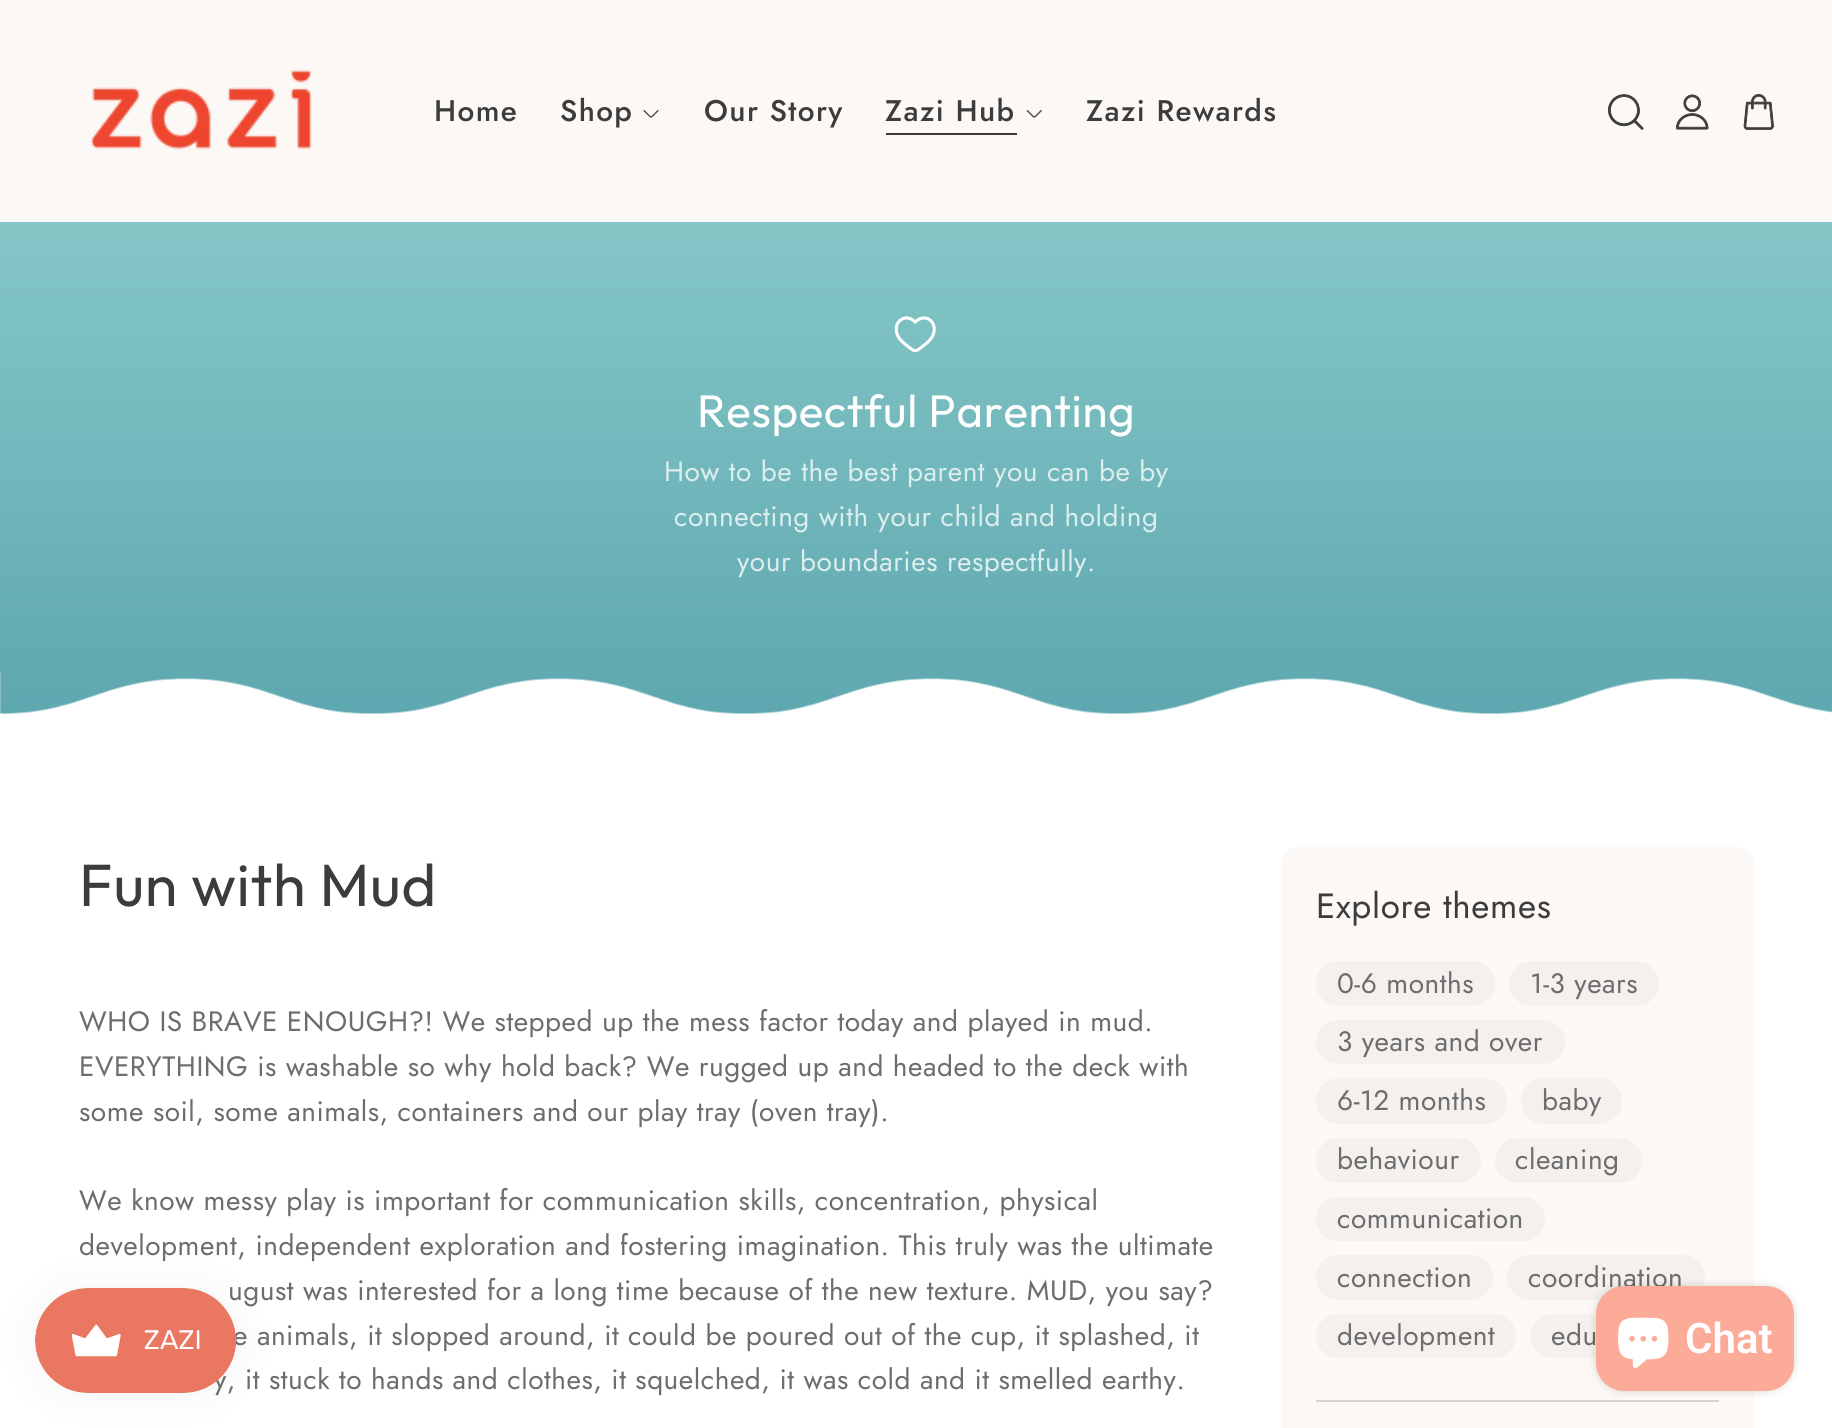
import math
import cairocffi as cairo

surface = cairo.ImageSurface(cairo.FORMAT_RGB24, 1832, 1428)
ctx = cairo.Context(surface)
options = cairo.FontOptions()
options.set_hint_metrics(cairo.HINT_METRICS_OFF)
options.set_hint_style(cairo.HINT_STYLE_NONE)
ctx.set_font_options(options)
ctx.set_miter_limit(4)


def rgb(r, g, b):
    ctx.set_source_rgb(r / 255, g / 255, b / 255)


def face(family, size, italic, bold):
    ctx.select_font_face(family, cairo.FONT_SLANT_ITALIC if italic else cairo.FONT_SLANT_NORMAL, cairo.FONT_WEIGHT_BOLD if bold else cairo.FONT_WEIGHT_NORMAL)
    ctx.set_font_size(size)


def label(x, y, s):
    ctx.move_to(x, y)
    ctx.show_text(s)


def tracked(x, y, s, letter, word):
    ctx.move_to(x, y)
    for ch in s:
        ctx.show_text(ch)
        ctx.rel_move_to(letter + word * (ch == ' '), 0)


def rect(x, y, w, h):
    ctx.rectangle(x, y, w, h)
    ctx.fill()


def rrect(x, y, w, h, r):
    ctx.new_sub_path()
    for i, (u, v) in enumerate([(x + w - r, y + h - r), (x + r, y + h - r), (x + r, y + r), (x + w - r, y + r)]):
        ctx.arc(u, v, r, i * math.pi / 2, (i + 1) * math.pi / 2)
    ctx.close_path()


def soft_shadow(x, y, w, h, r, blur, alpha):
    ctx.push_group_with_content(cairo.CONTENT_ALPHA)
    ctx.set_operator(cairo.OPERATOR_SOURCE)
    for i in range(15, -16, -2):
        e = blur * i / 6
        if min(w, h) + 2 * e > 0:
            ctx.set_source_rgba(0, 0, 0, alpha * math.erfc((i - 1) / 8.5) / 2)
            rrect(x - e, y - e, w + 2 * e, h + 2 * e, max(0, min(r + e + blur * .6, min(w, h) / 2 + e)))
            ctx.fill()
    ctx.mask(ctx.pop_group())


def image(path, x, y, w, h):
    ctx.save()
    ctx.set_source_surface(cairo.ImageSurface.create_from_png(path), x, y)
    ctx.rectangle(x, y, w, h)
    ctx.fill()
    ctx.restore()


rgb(255, 255, 255)
ctx.paint()
rgb(252, 248, 245)
rect(0, 0, 1832, 222)
image('image0.png', 90, 69, 222, 81)
face('Jost Medium', 29.75, 0, 0)
rgb(60, 60, 60)
tracked(434, 121, 'Home', 1.4, 0)
tracked(560, 121, 'Shop', 1.4, 0)
image('image1.png', 643, 110, 16, 8)
tracked(704, 121, 'Our Story', 1.4, 0)
tracked(885, 121, 'Zazi Hub', 1.4, 0)
rect(886, 133, 131, 2)
image('image2.png', 1026, 110, 16, 8)
tracked(1086, 121, 'Zazi Rewards', 1.4, 0)
image('image3.png', 1608, 94, 36, 36)
image('image4.png', 1676, 94, 33, 36)
image('image5.png', 1743, 94, 31, 36)
gradient = cairo.LinearGradient(916, 0, 916, 1428)
gradient.add_color_stop_rgba(0, 0.592, 0.835, 0.82, 1)
gradient.add_color_stop_rgba(1, 0.145, 0.478, 0.561, 1)
ctx.set_source(gradient)
rect(0, 222, 1832, 450)
image('image6.png', 894, 316, 42, 37)
face('Outfit', 45.5, 0, 0)
rgb(255, 255, 255)
tracked(697, 427, 'Respectful Parenting', 0.7, 0)
face('Jost', 28, 0, 0)
rgb(220, 237, 238)
tracked(664, 481, 'How to be the best parent you can be by', 0.53, 0)
tracked(674, 526, 'connecting with your child and holding', 0.53, 0)
tracked(737, 571, 'your boundaries respectfully.', 0.53, 0)
image('image7.png', 0, 672, 1832, 42)
face('Outfit', 59.5, 0, 0)
rgb(60, 60, 60)
tracked(79, 906, 'Fun with Mud', 0.7, 0)
face('Jost', 28, 0, 0)
rgb(109, 109, 109)
tracked(79, 1031, 'WHO IS BRAVE ENOUGH?! We stepped up the mess factor today and played in mud.', 0.53, 0)
tracked(79, 1076, 'EVERYTHING is washable so why hold back? We rugged up and headed to the deck with', 0.53, 0)
tracked(79, 1121, 'some soil, some animals, containers and our play tray (oven tray).', 0.53, 0)
tracked(79, 1210, 'We know messy play is important for communication skills, concentration, physical', 0.53, 0)
tracked(79, 1255, 'development, independent exploration and fostering imagination. This truly was the ultimate', 0.53, 0)
tracked(228, 1300, 'ugust was interested for a long time because of the new texture. MUD, you say?', 0.53, 0)
tracked(233, 1345, 'e animals, it slopped around, it could be poured out of the cup, it splashed, it', 0.53, 0)
tracked(214, 1389, 'y, it stuck to hands and clothes, it squelched, it was cold and it smelled earthy.', 0.53, 0)
rgb(252, 248, 245)
rrect(1281, 847, 473, 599, 18)
ctx.fill()
face('Jost', 35, 0, 0)
rgb(60, 60, 60)
tracked(1316, 918, 'Explore themes', 0.7, 0)
rgb(244, 240, 238)
rrect(1316, 961, 179, 45, 22.5)
ctx.fill()
face('Jost', 28, 0, 0)
rgb(109, 109, 109)
tracked(1337, 993, '0-6 months', 0.53, 0)
rgb(244, 240, 238)
rrect(1509, 961, 150, 45, 22.5)
ctx.fill()
rgb(109, 109, 109)
tracked(1530, 993, '1-3 years', 0.53, 0)
rgb(244, 240, 238)
rrect(1316, 1020, 249, 44, 22)
ctx.fill()
rgb(109, 109, 109)
tracked(1337, 1051, '3 years and over', 0.53, 0)
rgb(244, 240, 238)
rrect(1316, 1078, 191, 46, 23)
ctx.fill()
rgb(109, 109, 109)
tracked(1337, 1110, '6-12 months', 0.53, 0)
rgb(244, 240, 238)
rrect(1521, 1078, 101, 46, 23)
ctx.fill()
rgb(109, 109, 109)
tracked(1542, 1110, 'baby', 0.53, 0)
rgb(244, 240, 238)
rrect(1316, 1138, 165, 45, 22.5)
ctx.fill()
rgb(109, 109, 109)
tracked(1337, 1169, 'behaviour', 0.53, 0)
rgb(244, 240, 238)
rrect(1495, 1138, 147, 45, 22.5)
ctx.fill()
rgb(109, 109, 109)
tracked(1515, 1169, 'cleaning', 0.53, 0)
rgb(244, 240, 238)
rrect(1316, 1197, 229, 44, 22)
ctx.fill()
rgb(109, 109, 109)
tracked(1337, 1228, 'communication', 0.53, 0)
rgb(244, 240, 238)
rrect(1316, 1255, 177, 45, 22.5)
ctx.fill()
rgb(109, 109, 109)
tracked(1337, 1287, 'connection', 0.53, 0)
rgb(244, 240, 238)
rrect(1507, 1255, 198, 45, 22.5)
ctx.fill()
rgb(109, 109, 109)
tracked(1528, 1287, 'coordination', 0.53, 0)
rgb(244, 240, 238)
rrect(1316, 1314, 200, 44, 22)
ctx.fill()
rgb(109, 109, 109)
tracked(1337, 1345, 'development', 0.53, 0)
rgb(244, 240, 238)
rrect(1530, 1314, 183, 44, 22)
ctx.fill()
rgb(109, 109, 109)
tracked(1551, 1345, 'edu', 0.53, 0)
rgb(214, 210, 208)
rect(1316, 1400, 403, 2)
rgb(0, 0, 0)
soft_shadow(35, 1288, 201, 105, 52.5, 22, 0.05)
image('image8.png', 35, 1288, 201, 105)
soft_shadow(1596, 1286, 198, 105, 28, 4.5, 0.15)
rgb(251, 171, 151)
rrect(1596, 1286, 198, 105, 28)
ctx.fill()
image('image9.png', 1618, 1317, 51, 52)
face('Roboto SemiBold', 42, 0, 0)
rgb(255, 255, 255)
label(1685, 1353, 'Chat')
surface.write_to_png('render.png')
